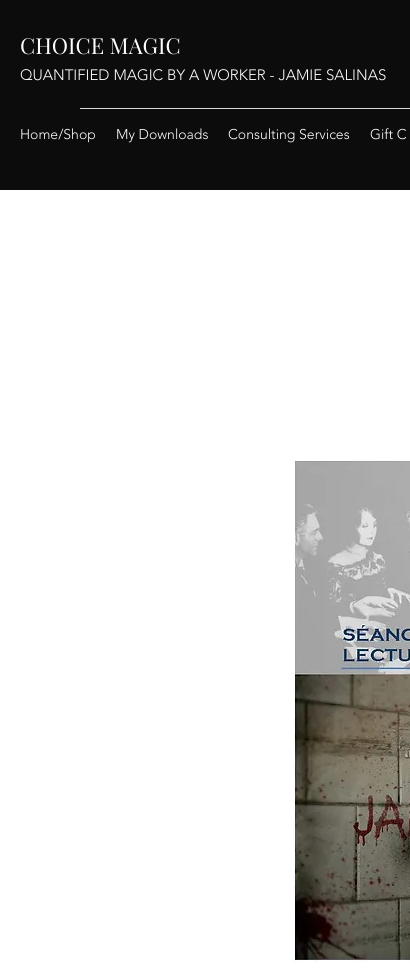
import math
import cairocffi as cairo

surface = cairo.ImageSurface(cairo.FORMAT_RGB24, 410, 974)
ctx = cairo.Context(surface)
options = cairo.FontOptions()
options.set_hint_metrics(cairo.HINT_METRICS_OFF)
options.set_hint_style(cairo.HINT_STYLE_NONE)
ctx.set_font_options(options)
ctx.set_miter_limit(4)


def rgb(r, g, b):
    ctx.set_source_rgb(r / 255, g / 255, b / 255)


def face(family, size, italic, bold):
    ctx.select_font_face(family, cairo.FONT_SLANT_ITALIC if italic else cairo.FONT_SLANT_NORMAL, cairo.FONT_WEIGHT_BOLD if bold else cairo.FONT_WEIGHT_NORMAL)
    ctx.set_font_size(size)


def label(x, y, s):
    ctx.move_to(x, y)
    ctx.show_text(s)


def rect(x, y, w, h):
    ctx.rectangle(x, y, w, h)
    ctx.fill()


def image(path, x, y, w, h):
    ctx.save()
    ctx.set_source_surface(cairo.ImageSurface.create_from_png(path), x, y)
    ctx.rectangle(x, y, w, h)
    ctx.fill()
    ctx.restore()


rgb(255, 255, 255)
ctx.paint()
rgb(13, 12, 12)
rect(0, 0, 410, 190)
face('Playfair Display', 22, 0, 0)
rgb(255, 255, 255)
label(20, 54, 'CHOICE MAGIC')
face('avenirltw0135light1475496 Light', 15, 0, 0)
label(20, 80, 'QUANTIFIED MAGIC BY A WORKER - JAMIE SALINAS')
rgb(219, 219, 219)
rect(80, 108, 330, 1)
face('avenirltw0135light1475496 Light', 14, 0, 0)
rgb(255, 255, 255)
label(20, 139, 'Home/Shop')
label(116, 139, 'My Downloads')
label(228, 139, 'Consulting Services')
label(370, 139, 'Gift C')
image('image0.png', 293, 459, 117, 503)
surface.write_to_png('render.png')
